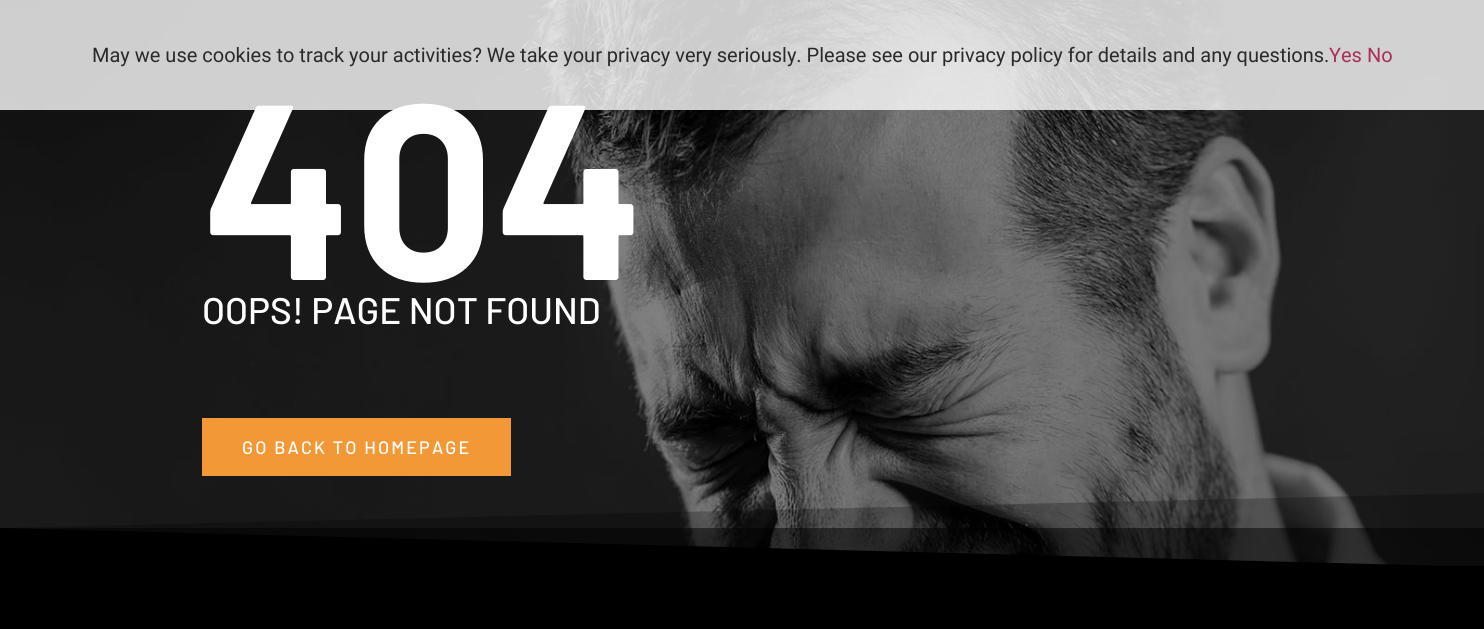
import math
import cairocffi as cairo

surface = cairo.ImageSurface(cairo.FORMAT_RGB24, 1484, 629)
ctx = cairo.Context(surface)
options = cairo.FontOptions()
options.set_hint_metrics(cairo.HINT_METRICS_OFF)
options.set_hint_style(cairo.HINT_STYLE_NONE)
ctx.set_font_options(options)
ctx.set_miter_limit(4)


def rgb(r, g, b):
    ctx.set_source_rgb(r / 255, g / 255, b / 255)


def face(family, size, italic, bold):
    ctx.select_font_face(family, cairo.FONT_SLANT_ITALIC if italic else cairo.FONT_SLANT_NORMAL, cairo.FONT_WEIGHT_BOLD if bold else cairo.FONT_WEIGHT_NORMAL)
    ctx.set_font_size(size)


def label(x, y, s):
    ctx.move_to(x, y)
    ctx.show_text(s)


def tracked(x, y, s, letter, word):
    ctx.move_to(x, y)
    for ch in s:
        ctx.show_text(ch)
        ctx.rel_move_to(letter + word * (ch == ' '), 0)


def rect(x, y, w, h):
    ctx.rectangle(x, y, w, h)
    ctx.fill()


def image(path, x, y, w, h):
    ctx.save()
    ctx.set_source_surface(cairo.ImageSurface.create_from_png(path), x, y)
    ctx.rectangle(x, y, w, h)
    ctx.fill()
    ctx.restore()


rgb(0, 0, 0)
ctx.paint()
image('image0.png', 0, 0, 1484, 566)
face('Barlow', 249, 0, 1)
rgb(255, 255, 255)
label(202, 280, '404')
ctx.set_source_rgba(1, 1, 1, 0.8)
rect(0, 0, 1484, 110)
face('Roboto', 20, 0, 0)
rgb(42, 42, 42)
label(92, 62, 'May we use cookies to track your activities? We take your privacy very seriously. Please see our privacy policy for details and any questions.')
rgb(169, 47, 88)
label(1329, 62, 'Yes No')
face('Barlow Medium', 37, 0, 0)
rgb(255, 255, 255)
label(202, 324, 'OOPS! PAGE NOT FOUND')
rgb(243, 152, 54)
rect(202, 418, 309, 58)
face('Barlow Medium', 18, 0, 0)
rgb(255, 255, 255)
tracked(242, 454, 'GO BACK TO HOMEPAGE', 2.1, 0)
rgb(0, 0, 0)
ctx.new_path()
ctx.move_to(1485, 567)
ctx.line_to(-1, 567)
ctx.line_to(-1, 528)
ctx.close_path()
ctx.fill()
ctx.set_source_rgba(0, 0, 0, 0.5)
rect(7, 528, 1477, 38)
ctx.set_source_rgba(0, 0, 0, 0.25)
ctx.new_path()
ctx.move_to(-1, 567)
ctx.line_to(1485, 567)
ctx.line_to(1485, 493)
ctx.line_to(-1, 528)
ctx.close_path()
ctx.fill()
surface.write_to_png('render.png')
